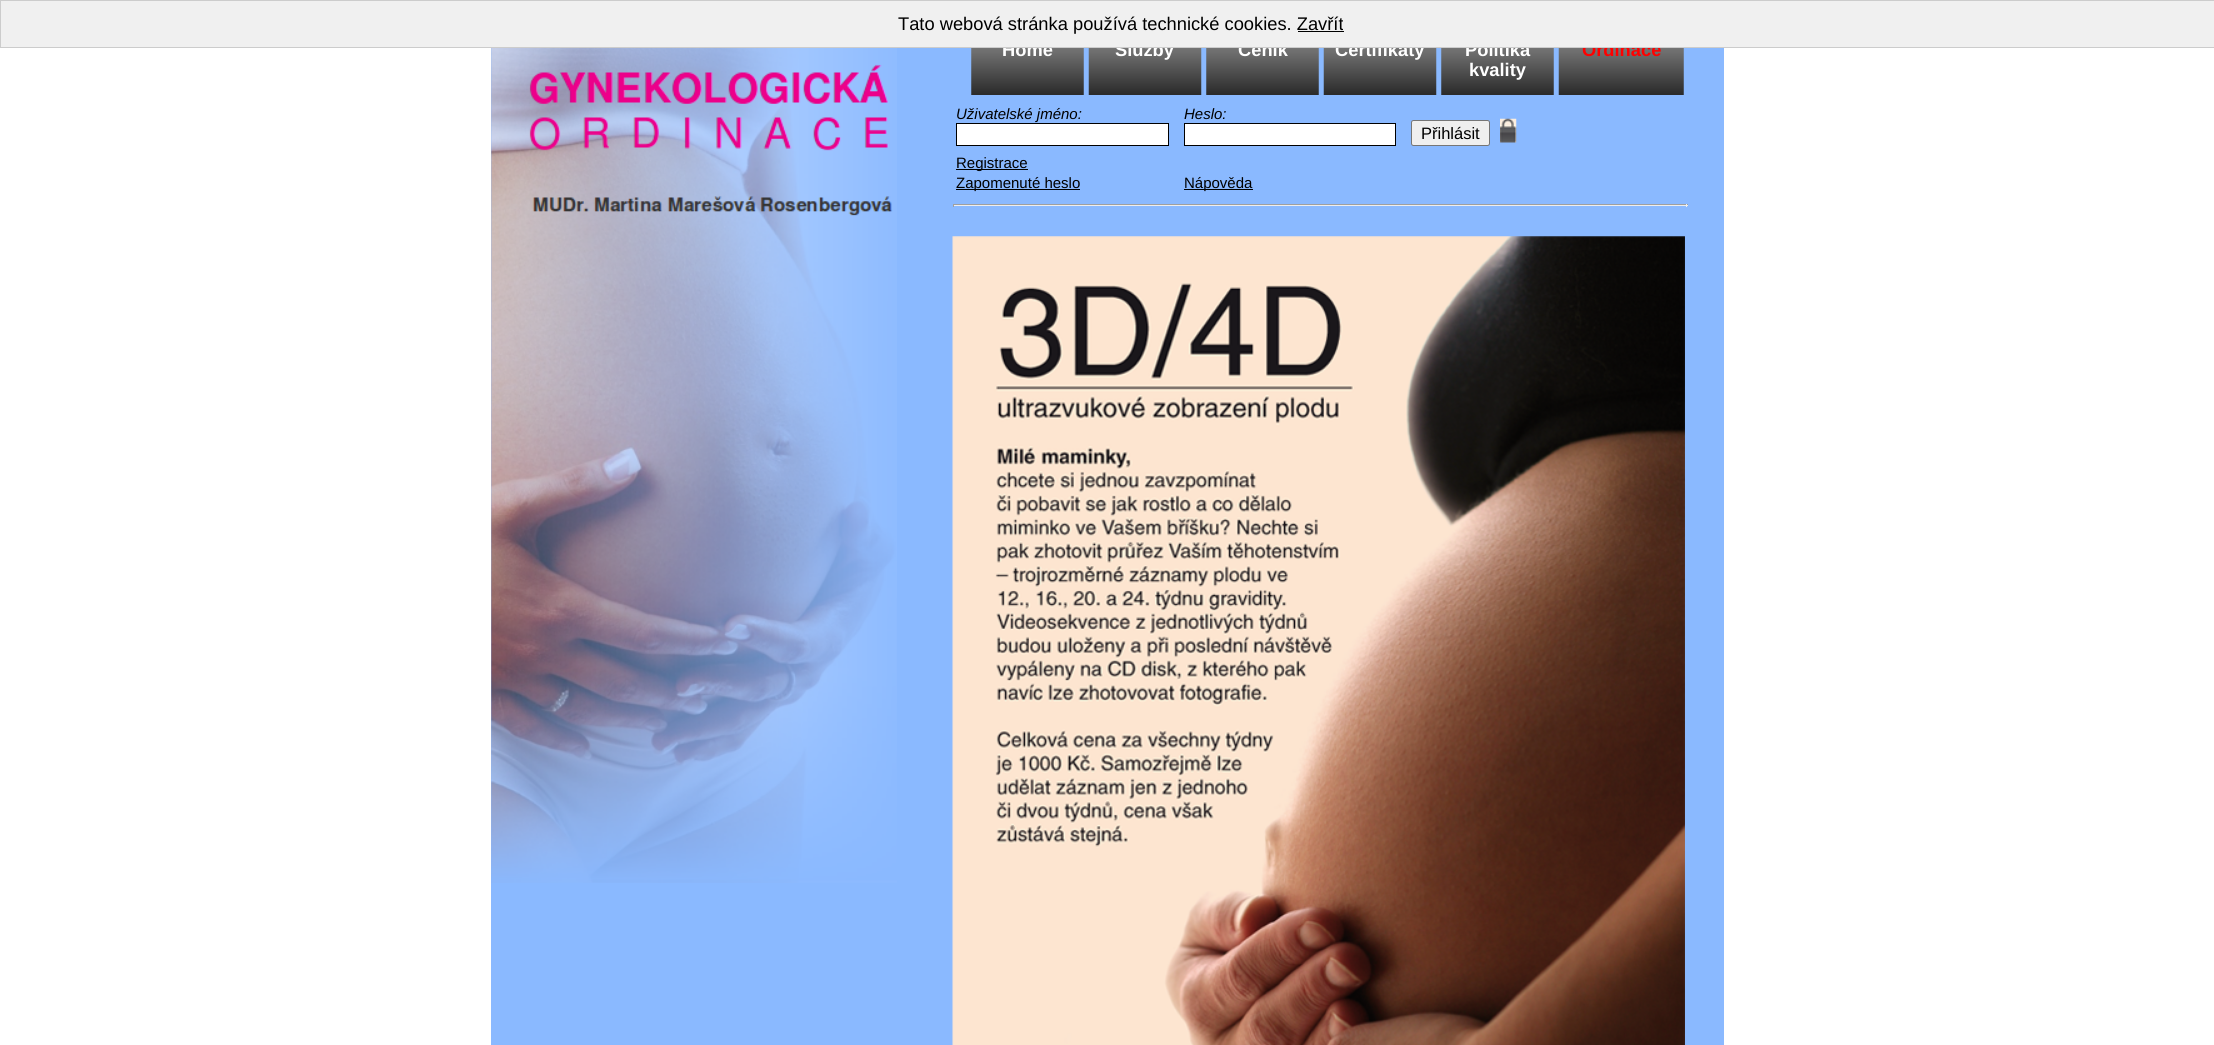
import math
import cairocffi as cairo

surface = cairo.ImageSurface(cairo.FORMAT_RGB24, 2214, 1045)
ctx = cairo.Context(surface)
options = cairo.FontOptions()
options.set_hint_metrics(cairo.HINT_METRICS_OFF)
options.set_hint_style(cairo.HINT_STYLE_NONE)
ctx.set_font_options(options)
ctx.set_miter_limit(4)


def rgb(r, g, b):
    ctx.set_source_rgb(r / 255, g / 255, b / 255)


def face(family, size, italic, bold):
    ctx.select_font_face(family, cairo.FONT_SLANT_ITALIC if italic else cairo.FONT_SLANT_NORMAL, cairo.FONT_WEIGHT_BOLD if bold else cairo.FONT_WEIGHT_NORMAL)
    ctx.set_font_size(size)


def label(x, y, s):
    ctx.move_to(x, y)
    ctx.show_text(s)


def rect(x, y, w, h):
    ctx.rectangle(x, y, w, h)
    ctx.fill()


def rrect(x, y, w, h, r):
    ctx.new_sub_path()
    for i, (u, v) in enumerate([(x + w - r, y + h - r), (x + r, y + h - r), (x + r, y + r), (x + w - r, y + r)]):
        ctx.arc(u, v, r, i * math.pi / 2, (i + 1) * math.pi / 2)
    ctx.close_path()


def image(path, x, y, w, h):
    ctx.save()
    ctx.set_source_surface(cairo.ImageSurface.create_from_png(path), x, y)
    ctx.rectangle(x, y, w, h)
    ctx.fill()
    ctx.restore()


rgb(255, 255, 255)
ctx.paint()
rgb(138, 185, 255)
rect(491, 48, 1233, 997)
image('image1.png', 971, 48, 113, 47)
face('Liberation Sans', 18.3, 0, 1)
rgb(255, 255, 255)
label(1002, 56, 'Home')
image('image2.png', 1088, 48, 114, 47)
label(1115, 56, 'Služby')
image('image1.png', 1206, 48, 113, 47)
label(1238, 56, 'Ceník')
image('image2.png', 1323, 48, 114, 47)
label(1335, 56, 'Certifikáty')
image('image1.png', 1441, 48, 113, 47)
label(1465, 56, 'Politika')
image('image3.png', 1558, 48, 126, 47)
rgb(255, 0, 0)
label(1582, 56, 'Ordinace')
rgb(240, 240, 240)
ctx.rectangle(0.5, 0.5, 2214, 47)
ctx.fill_preserve()
rgb(204, 204, 204)
ctx.set_line_width(1)
ctx.stroke()
face('Liberation Sans', 18.3, 0, 0)
rgb(0, 0, 0)
label(898, 30, 'Tato webová stránka používá technické cookies. Zavřít')
rect(1298, 31, 46, 1)
image('image0.png', 491, 48, 406, 835)
face('Liberation Sans', 18.3, 0, 1)
rgb(255, 255, 255)
label(1469, 76, 'kvality')
face('Liberation Sans', 15, 1, 0)
rgb(0, 0, 0)
label(956, 119, 'Uživatelské jméno:')
rgb(255, 255, 255)
ctx.rectangle(956.5, 123.5, 212, 22)
ctx.fill_preserve()
rgb(0, 0, 0)
ctx.stroke()
label(1184, 119, 'Heslo:')
rgb(255, 255, 255)
ctx.rectangle(1184.5, 123.5, 211, 22)
ctx.fill_preserve()
rgb(0, 0, 0)
ctx.stroke()
rgb(239, 239, 239)
rrect(1411.5, 120.5, 78, 25, 2)
ctx.fill_preserve()
rgb(118, 118, 118)
ctx.stroke()
face('Liberation Sans', 16.5, 0, 0)
rgb(0, 0, 0)
label(1421, 139, 'Přihlásit')
image('image4.png', 1500, 118, 17, 25)
rect(956, 169, 72, 1)
face('Liberation Sans', 15, 0, 0)
label(956, 168, 'Registrace')
rect(956, 189, 124, 1)
label(956, 188, 'Zapomenuté heslo')
rect(1184, 189, 69, 1)
label(1184, 188, 'Nápověda')
rgb(159, 159, 159)
rect(953, 204, 735, 1)
rgb(238, 238, 238)
rect(1686, 204, 1, 3)
rect(953, 205, 735, 1)
rgb(159, 159, 159)
rect(953, 204, 1, 3)
image('image5.png', 952, 236, 733, 809)
surface.write_to_png('render.png')
